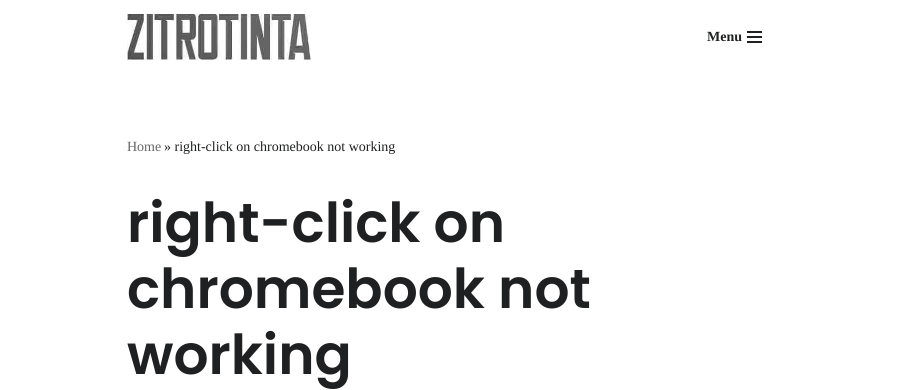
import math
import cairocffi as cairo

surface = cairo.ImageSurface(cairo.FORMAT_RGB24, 903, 390)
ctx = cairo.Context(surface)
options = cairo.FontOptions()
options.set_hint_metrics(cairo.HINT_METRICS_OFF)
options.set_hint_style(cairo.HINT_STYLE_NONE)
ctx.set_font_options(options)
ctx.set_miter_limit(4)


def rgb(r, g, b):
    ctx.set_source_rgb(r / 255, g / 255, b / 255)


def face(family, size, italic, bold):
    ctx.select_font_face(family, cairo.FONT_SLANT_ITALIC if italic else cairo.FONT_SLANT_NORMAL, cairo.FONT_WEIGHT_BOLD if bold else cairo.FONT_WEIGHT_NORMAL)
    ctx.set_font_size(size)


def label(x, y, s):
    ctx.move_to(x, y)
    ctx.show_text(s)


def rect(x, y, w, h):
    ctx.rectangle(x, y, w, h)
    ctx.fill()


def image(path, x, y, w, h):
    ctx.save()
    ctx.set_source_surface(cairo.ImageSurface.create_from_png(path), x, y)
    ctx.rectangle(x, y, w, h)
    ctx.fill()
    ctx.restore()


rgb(255, 255, 255)
ctx.paint()
image('image0.png', 127, 14, 184, 46)
face('Liberation Serif', 14, 0, 1)
rgb(31, 32, 33)
label(707, 41, 'Menu')
rect(747, 31, 15, 2)
rect(747, 36, 15, 2)
rect(747, 41, 15, 2)
face('Liberation Serif', 14, 0, 0)
rgb(103, 103, 103)
label(127, 151, 'Home')
rgb(31, 32, 33)
label(164, 151, '» right-click on chromebook not working')
face('Poppins SemiBold', 55, 0, 0)
label(127, 242, 'right-click on')
label(127, 308, 'chromebook not')
label(127, 374, 'working')
surface.write_to_png('render.png')
